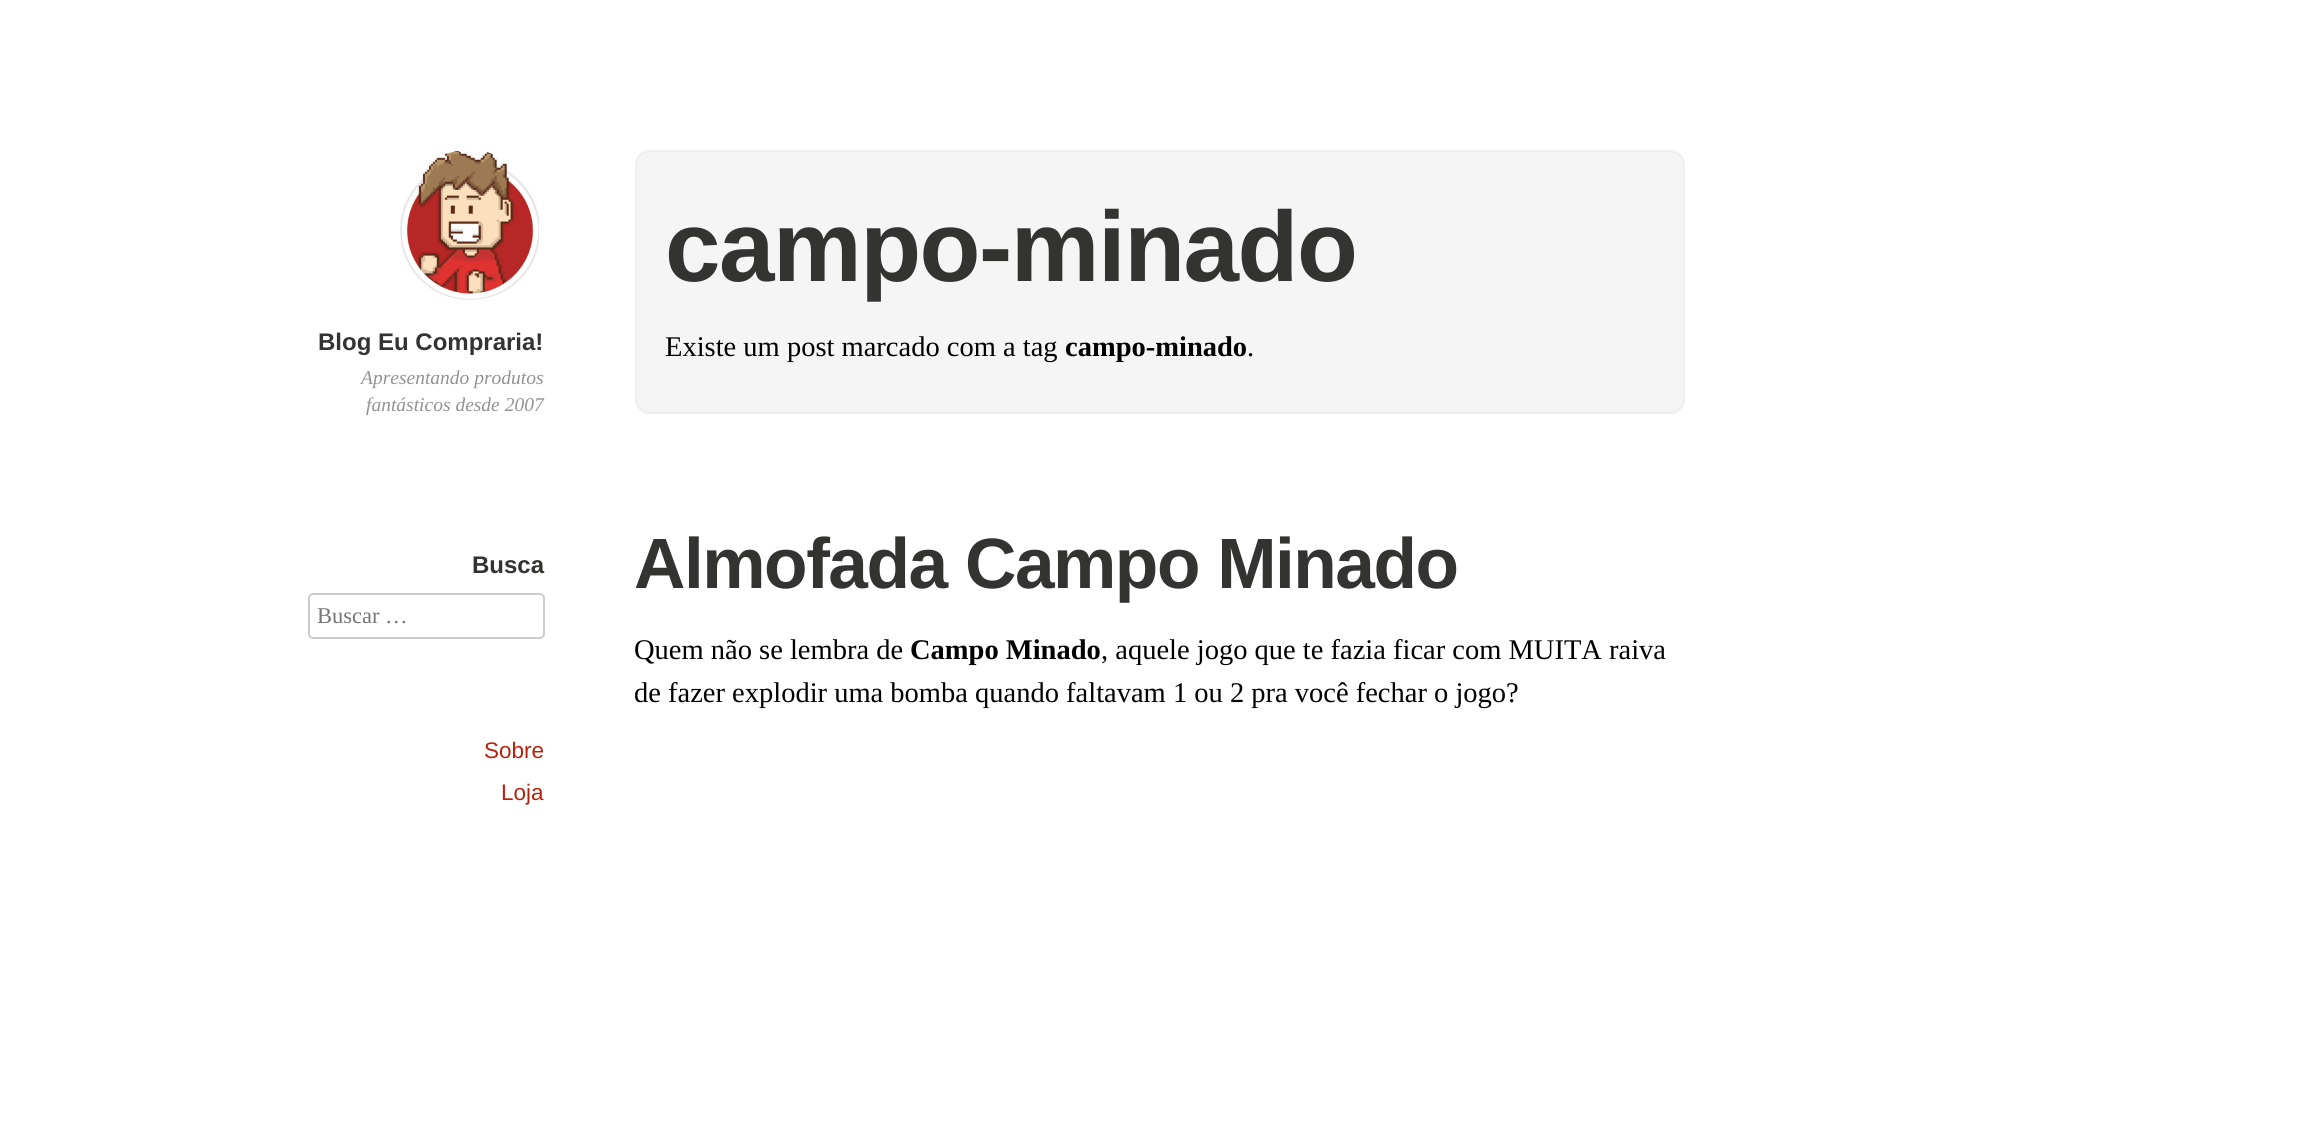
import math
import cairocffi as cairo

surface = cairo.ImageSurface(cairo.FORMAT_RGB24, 2317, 1133)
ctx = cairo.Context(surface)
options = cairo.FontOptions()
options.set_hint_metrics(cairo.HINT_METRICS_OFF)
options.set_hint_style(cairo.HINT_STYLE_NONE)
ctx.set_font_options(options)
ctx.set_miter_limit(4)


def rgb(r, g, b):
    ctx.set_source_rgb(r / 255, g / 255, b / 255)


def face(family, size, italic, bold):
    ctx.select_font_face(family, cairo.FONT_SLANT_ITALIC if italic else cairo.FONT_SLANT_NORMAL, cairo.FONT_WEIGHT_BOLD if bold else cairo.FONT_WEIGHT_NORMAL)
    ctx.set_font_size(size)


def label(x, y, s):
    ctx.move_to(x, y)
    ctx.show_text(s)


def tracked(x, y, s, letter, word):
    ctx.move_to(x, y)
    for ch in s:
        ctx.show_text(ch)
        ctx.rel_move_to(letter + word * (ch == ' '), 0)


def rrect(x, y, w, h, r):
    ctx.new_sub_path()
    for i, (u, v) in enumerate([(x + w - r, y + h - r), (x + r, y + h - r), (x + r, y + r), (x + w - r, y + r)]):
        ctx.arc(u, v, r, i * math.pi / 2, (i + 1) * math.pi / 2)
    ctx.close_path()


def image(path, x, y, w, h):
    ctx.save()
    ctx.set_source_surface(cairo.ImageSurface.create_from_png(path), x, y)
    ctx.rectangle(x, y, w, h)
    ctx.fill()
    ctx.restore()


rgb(255, 255, 255)
ctx.paint()
face('Liberation Sans', 24, 0, 1)
rgb(51, 51, 50)
label(472, 573, 'Busca')
rrect(309, 594, 235, 44, 4)
rgb(204, 204, 204)
ctx.stroke()
face('Liberation Serif', 22.5, 0, 0)
rgb(117, 117, 117)
label(317, 623, 'Buscar …')
face('Liberation Sans', 22.5, 0, 0)
rgb(183, 34, 12)
label(484, 758, 'Sobre')
label(501, 800, 'Loja')
rgb(245, 245, 245)
rrect(636, 151, 1048, 262, 14)
ctx.fill_preserve()
rgb(238, 238, 238)
ctx.stroke()
face('Liberation Sans', 99.75, 0, 1)
rgb(51, 51, 50)
tracked(665, 281, 'campo-minado', -1.5, 0)
face('Liberation Serif', 28.5, 0, 0)
rgb(0, 0, 0)
label(665, 356, 'Existe um post marcado com a tag')
face('Liberation Serif', 28.5, 0, 1)
label(1065, 356, 'campo-minado')
face('Liberation Serif', 28.5, 0, 0)
label(1247, 356, '.')
face('Liberation Sans', 71.25, 0, 1)
rgb(51, 51, 50)
tracked(634, 588, 'Almofada Campo Minado', -1.5, 0)
face('Liberation Serif', 28.5, 0, 0)
rgb(0, 0, 0)
label(634, 659, 'Quem não se lembra de')
face('Liberation Serif', 28.5, 0, 1)
label(910, 659, 'Campo Minado')
face('Liberation Serif', 28.5, 0, 0)
label(1101, 659, ', aquele jogo que te fazia ficar com MUITA raiva')
label(634, 702, 'de fazer explodir uma bomba quando faltavam 1 ou 2 pra você fechar o jogo?')
image('image0.png', 400, 150, 139, 150)
face('Liberation Sans', 24, 0, 1)
rgb(51, 51, 50)
label(318, 350, 'Blog Eu Compraria!')
face('Liberation Serif', 19.5, 1, 0)
rgb(146, 146, 146)
label(361, 384, 'Apresentando produtos')
label(366, 411, 'fantásticos desde 2007')
surface.write_to_png('render.png')
